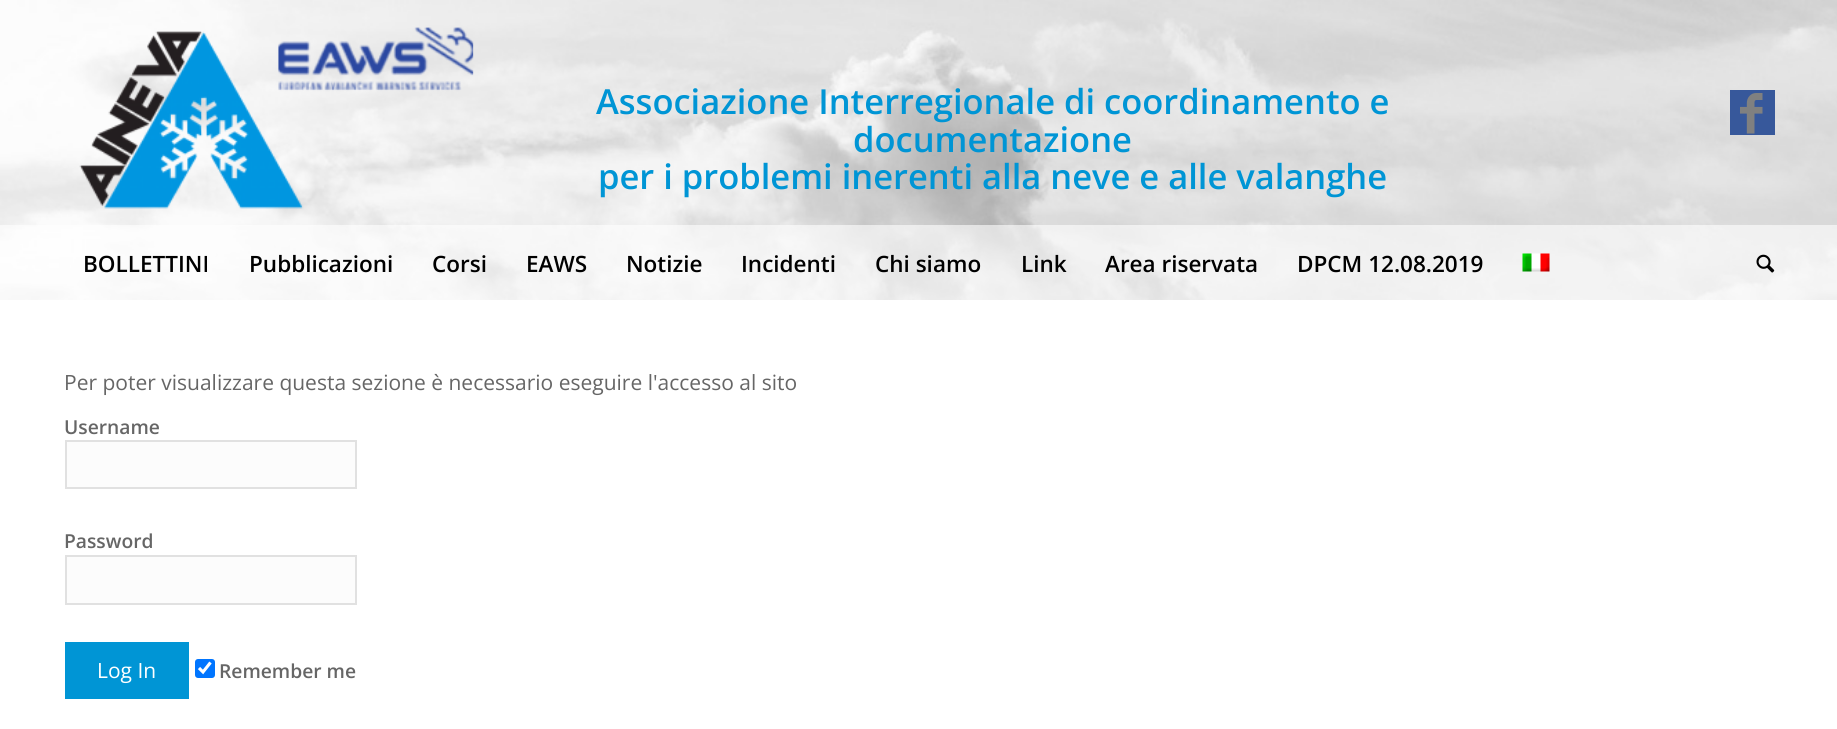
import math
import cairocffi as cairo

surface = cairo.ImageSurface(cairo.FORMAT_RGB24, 1837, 729)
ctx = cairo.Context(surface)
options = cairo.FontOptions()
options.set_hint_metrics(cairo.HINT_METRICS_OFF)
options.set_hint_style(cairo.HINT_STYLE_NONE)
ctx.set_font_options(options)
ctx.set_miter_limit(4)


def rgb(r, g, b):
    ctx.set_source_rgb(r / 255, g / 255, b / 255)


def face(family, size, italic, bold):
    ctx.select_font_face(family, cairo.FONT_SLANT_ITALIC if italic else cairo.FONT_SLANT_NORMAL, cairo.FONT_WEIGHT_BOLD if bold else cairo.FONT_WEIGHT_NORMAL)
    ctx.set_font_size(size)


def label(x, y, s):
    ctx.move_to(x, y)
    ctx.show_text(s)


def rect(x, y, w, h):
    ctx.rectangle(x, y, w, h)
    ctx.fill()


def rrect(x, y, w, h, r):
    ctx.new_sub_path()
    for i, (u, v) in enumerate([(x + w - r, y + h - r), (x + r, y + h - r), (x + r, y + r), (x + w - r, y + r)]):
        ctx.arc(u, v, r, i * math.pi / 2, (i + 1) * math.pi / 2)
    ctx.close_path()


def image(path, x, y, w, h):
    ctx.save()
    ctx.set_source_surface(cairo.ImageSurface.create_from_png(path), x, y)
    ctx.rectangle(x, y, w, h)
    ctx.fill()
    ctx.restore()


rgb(255, 255, 255)
ctx.paint()
image('image0.png', 0, 0, 1837, 300)
image('image1.png', 79, 27, 395, 182)
rgb(55, 88, 155)
rect(1730, 90, 45, 45)
image('image2.png', 1740, 93, 23, 41)
face('Open Sans SemiBold', 34.5, 0, 0)
rgb(0, 149, 213)
label(596, 114, 'Associazione Interregionale di coordinamento e')
label(853, 152, 'documentazione')
label(598, 189, 'per i problemi inerenti alla neve e alle valanghe')
ctx.set_source_rgba(1, 1, 1, 0.6)
rect(0, 225, 1837, 75)
face('Open Sans SemiBold', 22.5, 0, 0)
rgb(0, 0, 0)
label(83, 272, 'BOLLETTINI')
label(249, 272, 'Pubblicazioni')
label(432, 272, 'Corsi')
label(526, 272, 'EAWS')
label(626, 272, 'Notizie')
label(741, 272, 'Incidenti')
label(875, 272, 'Chi siamo')
label(1021, 272, 'Link')
label(1105, 272, 'Area riservata')
label(1297, 272, 'DPCM 12.08.2019')
image('image3.png', 1522, 253, 28, 19)
image('image4.png', 1756, 254, 19, 19)
face('Open Sans', 21, 0, 0)
rgb(102, 102, 102)
label(64, 390, 'Per poter visualizzare questa sezione è necessario eseguire l\'accesso al sito')
face('Open Sans SemiBold', 19.25, 0, 0)
label(64, 434, 'Username')
rgb(252, 252, 252)
ctx.rectangle(66, 441, 290, 47)
ctx.fill_preserve()
rgb(225, 225, 225)
ctx.stroke()
rgb(102, 102, 102)
label(64, 548, 'Password')
rgb(252, 252, 252)
ctx.rectangle(66, 556, 290, 48)
ctx.fill_preserve()
rgb(225, 225, 225)
ctx.stroke()
rgb(0, 149, 213)
rect(65, 642, 124, 57)
face('Open Sans', 21, 0, 0)
rgb(255, 255, 255)
label(97, 678, 'Log In')
rgb(0, 117, 255)
rrect(195, 659, 20, 19, 3)
ctx.fill()
ctx.new_path()
ctx.move_to(199, 668)
ctx.line_to(203, 672)
ctx.line_to(210.5, 662.5)
rgb(255, 255, 255)
ctx.set_line_width(3.1)
ctx.stroke()
face('Open Sans SemiBold', 19.25, 0, 0)
rgb(102, 102, 102)
label(219, 678, 'Remember me')
surface.write_to_png('render.png')
